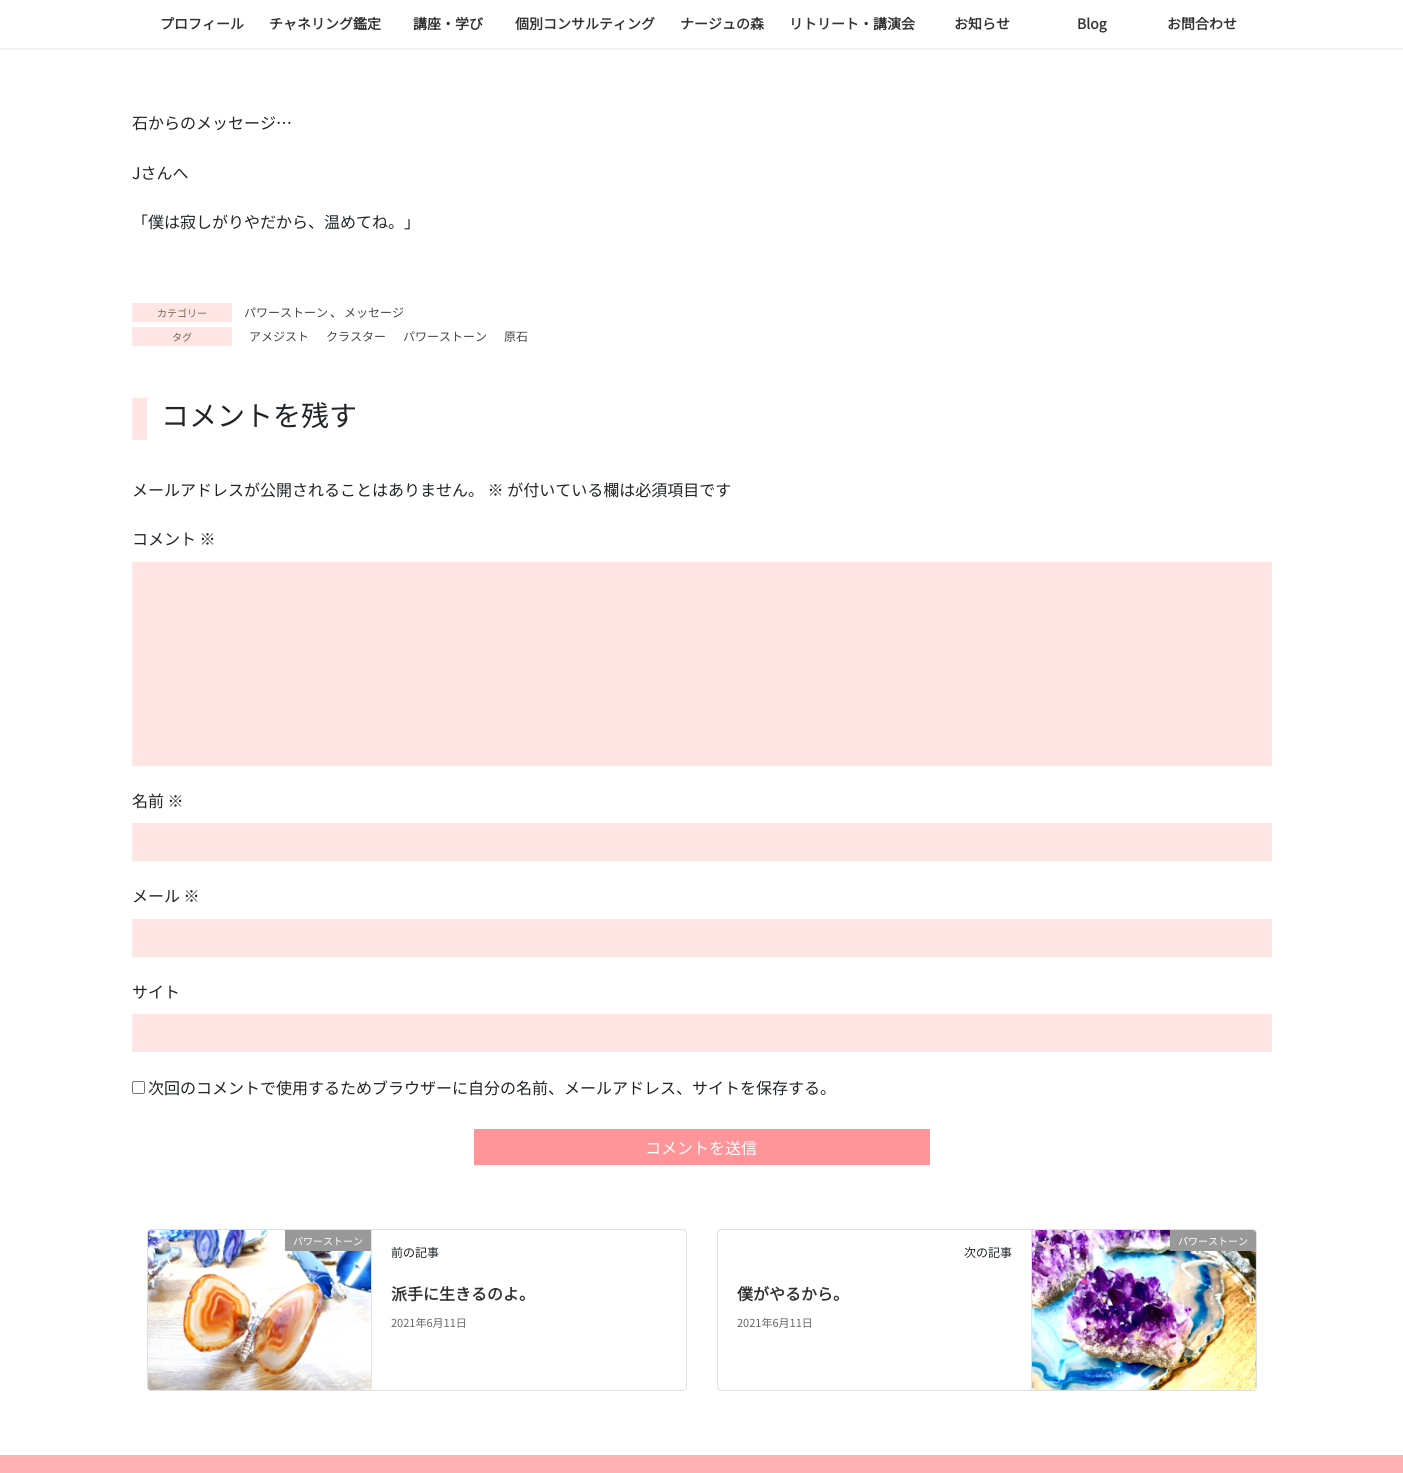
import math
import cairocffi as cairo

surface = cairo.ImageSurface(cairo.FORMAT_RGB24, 1403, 1473)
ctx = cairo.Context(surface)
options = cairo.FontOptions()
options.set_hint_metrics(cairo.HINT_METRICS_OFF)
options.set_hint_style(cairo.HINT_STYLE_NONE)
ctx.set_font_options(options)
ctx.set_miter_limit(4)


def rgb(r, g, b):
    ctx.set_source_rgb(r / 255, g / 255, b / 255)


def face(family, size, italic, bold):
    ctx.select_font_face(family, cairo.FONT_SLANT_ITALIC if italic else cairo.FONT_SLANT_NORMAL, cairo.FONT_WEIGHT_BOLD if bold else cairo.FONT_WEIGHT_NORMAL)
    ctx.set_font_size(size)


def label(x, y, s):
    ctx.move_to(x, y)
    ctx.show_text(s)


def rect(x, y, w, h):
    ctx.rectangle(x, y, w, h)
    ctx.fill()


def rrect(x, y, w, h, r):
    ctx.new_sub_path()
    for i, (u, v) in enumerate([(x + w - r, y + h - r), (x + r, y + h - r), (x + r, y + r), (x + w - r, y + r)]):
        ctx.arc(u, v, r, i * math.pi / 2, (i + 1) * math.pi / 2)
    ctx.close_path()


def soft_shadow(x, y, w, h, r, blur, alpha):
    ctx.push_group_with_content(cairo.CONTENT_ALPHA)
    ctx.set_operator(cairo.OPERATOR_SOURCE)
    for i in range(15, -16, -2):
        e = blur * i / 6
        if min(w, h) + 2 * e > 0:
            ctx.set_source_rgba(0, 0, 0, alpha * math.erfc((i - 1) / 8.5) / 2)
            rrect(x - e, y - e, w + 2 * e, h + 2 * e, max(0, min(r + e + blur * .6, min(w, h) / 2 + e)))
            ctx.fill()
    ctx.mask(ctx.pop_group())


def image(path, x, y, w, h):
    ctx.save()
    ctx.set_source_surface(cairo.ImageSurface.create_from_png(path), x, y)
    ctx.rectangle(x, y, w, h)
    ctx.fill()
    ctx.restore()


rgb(255, 255, 255)
ctx.paint()
rgb(0, 0, 0)
soft_shadow(0, 1, 1403, 48, 0, 1.5, 0.1)
rgb(255, 255, 255)
rect(0, 0, 1403, 48)
face('Noto Sans JP', 14, 0, 1)
rgb(51, 51, 51)
label(160, 29, 'プロフィール')
label(269, 29, 'チャネリング鑑定')
label(413, 29, '講座・学び')
label(515, 29, '個別コンサルティング')
label(680, 29, 'ナージュの森')
label(789, 29, 'リトリート・講演会')
label(954, 29, 'お知らせ')
label(1077, 29, 'Blog')
label(1167, 29, 'お問合わせ')
face('Noto Sans JP Thin', 16, 0, 0)
rgb(33, 37, 41)
label(132, 129, '石からのメッセージ…')
label(132, 179, 'Jさんへ')
label(132, 228, '「僕は寂しがりやだから、温めてね。」')
rgb(255, 230, 229)
rect(132, 303, 100, 19)
face('Noto Sans JP Thin', 10, 0, 0)
rgb(120, 95, 75)
label(157, 317, 'カテゴリー')
face('Noto Sans JP Thin', 12, 0, 0)
rgb(70, 70, 70)
label(244, 317, 'パワーストーン')
rgb(33, 37, 41)
label(330, 317, '、')
rgb(70, 70, 70)
label(344, 317, 'メッセージ')
rgb(255, 230, 229)
rect(132, 327, 100, 19)
face('Noto Sans JP Thin', 10, 0, 0)
rgb(120, 95, 75)
label(172, 341, 'タグ')
face('Noto Sans JP Thin', 12, 0, 0)
rgb(70, 70, 70)
label(249, 341, 'アメジスト')
label(326, 341, 'クラスター')
label(403, 341, 'パワーストーン')
label(504, 341, '原石')
rgb(255, 230, 229)
rect(132, 398, 15, 42)
face('Noto Sans JP Thin', 28, 0, 0)
rgb(33, 37, 41)
label(161, 426, 'コメントを残す')
face('Noto Sans JP Thin', 16, 0, 0)
label(132, 496, 'メールアドレスが公開されることはありません。 ※ が付いている欄は必須項目です')
label(132, 545, 'コメント ※')
rgb(255, 230, 229)
rect(132, 562, 1140, 204)
rgb(33, 37, 41)
label(132, 807, '名前 ※')
rgb(255, 230, 229)
rect(132, 823, 1140, 38)
rgb(33, 37, 41)
label(132, 902, 'メール ※')
rgb(255, 230, 229)
rect(132, 919, 1140, 38)
rgb(33, 37, 41)
label(132, 998, 'サイト')
rgb(255, 230, 229)
rect(132, 1014, 1140, 38)
rrect(132.5, 1081.5, 12, 12, 1.5)
rgb(118, 118, 118)
ctx.set_line_width(1)
ctx.stroke()
rgb(33, 37, 41)
label(148, 1094, '次回のコメントで使用するためブラウザーに自分の名前、メールアドレス、サイトを保存する。')
rgb(255, 149, 153)
rect(474, 1129, 456, 36)
rgb(255, 255, 255)
label(645, 1154, 'コメントを送信')
rrect(147.5, 1229.5, 539, 161, 3.5)
rgb(223, 223, 223)
ctx.stroke()
image('image0.png', 148, 1230, 223, 160)
rgb(229, 229, 229)
rect(371, 1230, 1, 160)
rgb(153, 153, 153)
rect(285, 1230, 86, 21)
face('Noto Sans JP Thin', 10, 0, 0)
rgb(255, 255, 255)
label(293, 1245, 'パワーストーン')
face('Noto Sans JP Thin', 12, 0, 0)
rgb(33, 37, 41)
label(391, 1257, '前の記事')
face('Noto Sans JP', 16, 0, 1)
rgb(51, 51, 51)
label(391, 1300, '派手に生きるのよ。')
face('Noto Sans JP Thin', 11, 0, 0)
rgb(102, 102, 102)
label(391, 1327, '2021年6月11日')
rrect(717.5, 1229.5, 539, 161, 3.5)
rgb(223, 223, 223)
ctx.stroke()
image('image1.png', 1032, 1230, 224, 160)
rgb(229, 229, 229)
rect(1031, 1230, 1, 160)
rgb(153, 153, 153)
ctx.new_path()
ctx.move_to(1170, 1230)
ctx.line_to(1253, 1230)
ctx.curve_to(1254.5, 1230, 1256, 1231.5, 1256, 1233)
ctx.line_to(1256, 1251)
ctx.line_to(1170, 1251)
ctx.close_path()
ctx.fill()
face('Noto Sans JP Thin', 10, 0, 0)
rgb(255, 255, 255)
label(1178, 1245, 'パワーストーン')
face('Noto Sans JP Thin', 12, 0, 0)
rgb(33, 37, 41)
label(964, 1257, '次の記事')
face('Noto Sans JP', 16, 0, 1)
rgb(51, 51, 51)
label(737, 1300, '僕がやるから。')
face('Noto Sans JP Thin', 11, 0, 0)
rgb(102, 102, 102)
label(737, 1327, '2021年6月11日')
rgb(255, 177, 180)
rect(0, 1455, 1403, 18)
surface.write_to_png('render.png')
